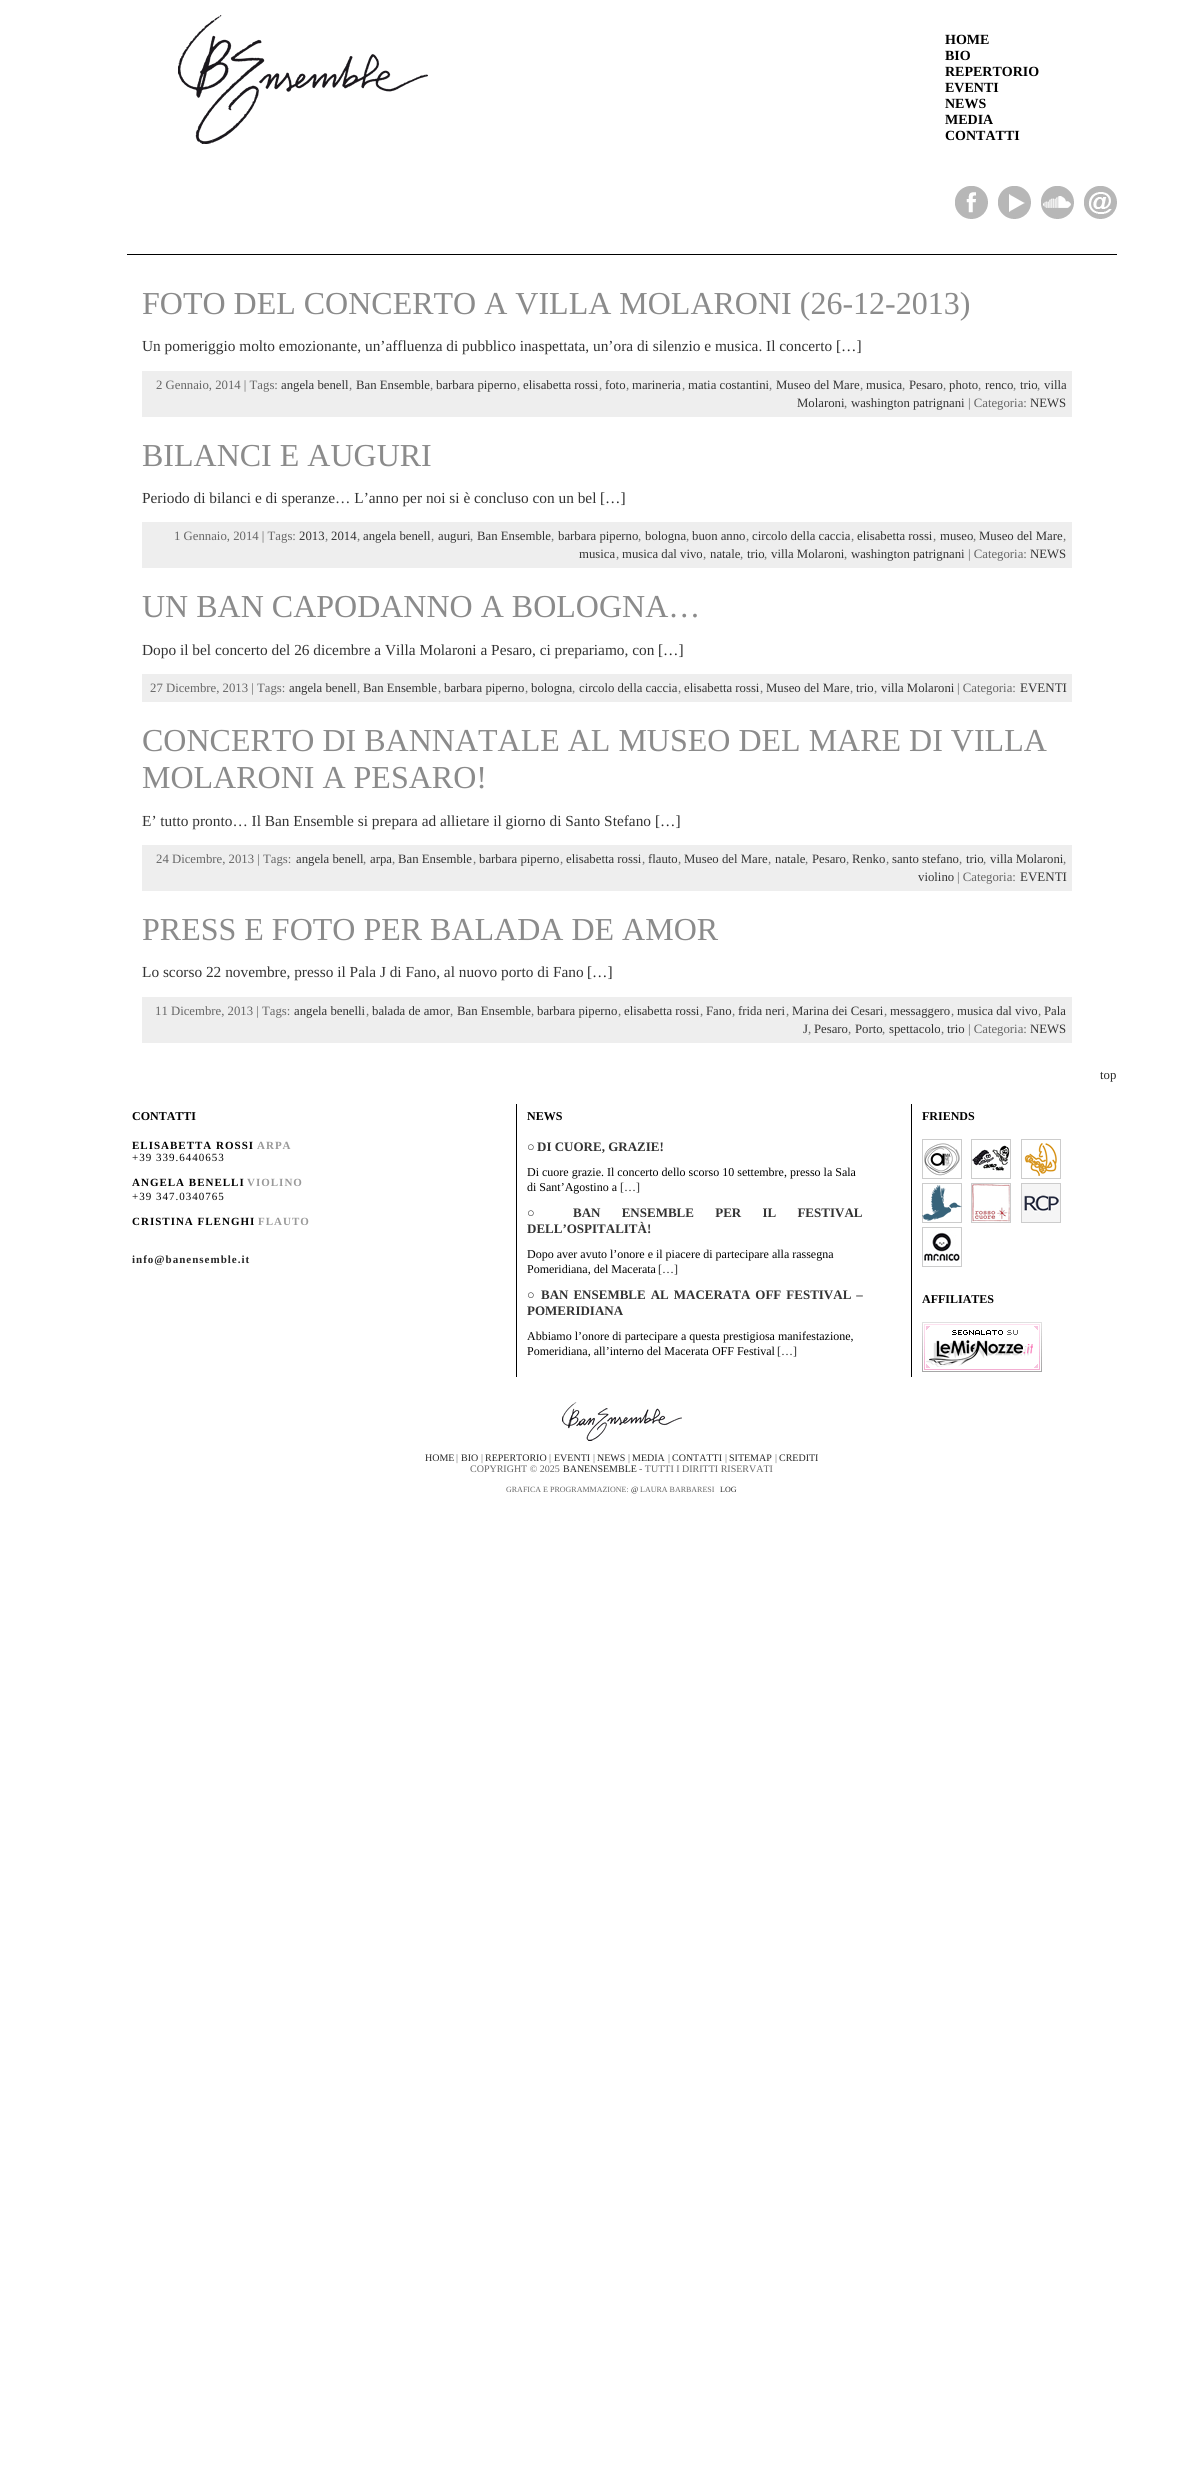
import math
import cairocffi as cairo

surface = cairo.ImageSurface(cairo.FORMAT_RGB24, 1193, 2466)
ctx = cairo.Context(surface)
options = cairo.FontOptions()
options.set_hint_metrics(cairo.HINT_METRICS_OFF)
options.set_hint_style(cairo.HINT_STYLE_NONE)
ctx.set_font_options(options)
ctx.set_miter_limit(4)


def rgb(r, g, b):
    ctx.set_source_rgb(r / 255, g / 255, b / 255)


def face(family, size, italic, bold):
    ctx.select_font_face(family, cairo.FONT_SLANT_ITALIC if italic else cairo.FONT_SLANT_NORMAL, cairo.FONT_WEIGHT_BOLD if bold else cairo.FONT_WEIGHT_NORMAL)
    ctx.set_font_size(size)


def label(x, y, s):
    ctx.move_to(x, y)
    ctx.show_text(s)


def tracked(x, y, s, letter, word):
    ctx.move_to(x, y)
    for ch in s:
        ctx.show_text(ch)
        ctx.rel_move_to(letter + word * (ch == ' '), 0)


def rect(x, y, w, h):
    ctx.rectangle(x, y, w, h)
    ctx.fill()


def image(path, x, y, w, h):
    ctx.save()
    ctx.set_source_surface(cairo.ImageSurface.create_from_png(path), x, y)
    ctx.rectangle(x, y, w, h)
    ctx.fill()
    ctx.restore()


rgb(255, 255, 255)
ctx.paint()
image('image0.png', 178, 15, 250, 129)
face('Liberation Serif', 14, 0, 1)
rgb(0, 0, 0)
label(945, 44, 'HOME')
label(945, 60, 'BIO')
label(945, 76, 'REPERTORIO')
label(945, 92, 'EVENTI')
label(945, 108, 'NEWS')
label(945, 124, 'MEDIA')
label(945, 140, 'CONTATTI')
image('image1.png', 955, 186, 33, 33)
image('image2.png', 998, 186, 33, 33)
image('image3.png', 1041, 186, 33, 33)
image('image4.png', 1084, 186, 33, 33)
rect(127, 254, 990, 1)
face('Liberation Serif', 32, 0, 0)
rgb(139, 139, 139)
label(142, 314, 'FOTO DEL CONCERTO A VILLA MOLARONI (26-12-2013)')
face('Liberation Serif', 15.35, 0, 0)
rgb(51, 51, 51)
label(142, 351, 'Un pomeriggio molto emozionante, un’affluenza di pubblico inaspettata, un’ora di silenzio e musica. Il concerto')
rgb(39, 39, 39)
label(836, 351, '[…]')
rgb(238, 238, 238)
rect(142, 371, 930, 46)
face('Liberation Serif', 12.75, 0, 0)
rgb(102, 102, 102)
label(156, 389, '2 Gennaio, 2014 | Tags:')
rgb(51, 51, 51)
label(281, 389, 'angela benell')
rgb(102, 102, 102)
label(349, 389, ',')
rgb(51, 51, 51)
label(356, 389, 'Ban Ensemble')
rgb(102, 102, 102)
label(430, 389, ',')
rgb(51, 51, 51)
label(436, 389, 'barbara piperno')
rgb(102, 102, 102)
label(517, 389, ',')
rgb(51, 51, 51)
label(523, 389, 'elisabetta rossi')
rgb(102, 102, 102)
label(599, 389, ',')
rgb(51, 51, 51)
label(605, 389, 'foto')
rgb(102, 102, 102)
label(626, 389, ',')
rgb(51, 51, 51)
label(632, 389, 'marineria')
rgb(102, 102, 102)
label(682, 389, ',')
rgb(51, 51, 51)
label(688, 389, 'matia costantini')
rgb(102, 102, 102)
label(769, 389, ',')
rgb(51, 51, 51)
label(776, 389, 'Museo del Mare')
rgb(102, 102, 102)
label(860, 389, ',')
rgb(51, 51, 51)
label(866, 389, 'musica')
rgb(102, 102, 102)
label(902, 389, ',')
rgb(51, 51, 51)
label(909, 389, 'Pesaro')
rgb(102, 102, 102)
label(943, 389, ',')
rgb(51, 51, 51)
label(949, 389, 'photo')
rgb(102, 102, 102)
label(978, 389, ',')
rgb(51, 51, 51)
label(985, 389, 'renco')
rgb(102, 102, 102)
label(1013, 389, ',')
rgb(51, 51, 51)
label(1020, 389, 'trio')
rgb(102, 102, 102)
label(1037, 389, ',')
rgb(51, 51, 51)
label(1044, 389, 'villa')
label(797, 407, 'Molaroni')
rgb(102, 102, 102)
label(844, 407, ',')
rgb(51, 51, 51)
label(851, 407, 'washington patrignani')
rgb(102, 102, 102)
label(968, 407, '| Categoria:')
rgb(51, 51, 51)
label(1030, 407, 'NEWS')
face('Liberation Serif', 32, 0, 0)
rgb(139, 139, 139)
label(142, 466, 'BILANCI E AUGURI')
face('Liberation Serif', 15.35, 0, 0)
rgb(51, 51, 51)
label(142, 503, 'Periodo di bilanci e di speranze… L’anno per noi si è concluso con un bel')
rgb(39, 39, 39)
label(600, 503, '[…]')
rgb(238, 238, 238)
rect(142, 522, 930, 46)
face('Liberation Serif', 12.75, 0, 0)
rgb(102, 102, 102)
label(174, 540, '1 Gennaio, 2014 | Tags:')
rgb(51, 51, 51)
label(299, 540, '2013')
rgb(102, 102, 102)
label(325, 540, ',')
rgb(51, 51, 51)
label(331, 540, '2014')
rgb(102, 102, 102)
label(357, 540, ',')
rgb(51, 51, 51)
label(363, 540, 'angela benell')
rgb(102, 102, 102)
label(431, 540, ',')
rgb(51, 51, 51)
label(438, 540, 'auguri')
rgb(102, 102, 102)
label(470, 540, ',')
rgb(51, 51, 51)
label(477, 540, 'Ban Ensemble')
rgb(102, 102, 102)
label(551, 540, ',')
rgb(51, 51, 51)
label(558, 540, 'barbara piperno')
rgb(102, 102, 102)
label(638, 540, ',')
rgb(51, 51, 51)
label(645, 540, 'bologna')
rgb(102, 102, 102)
label(686, 540, ',')
rgb(51, 51, 51)
label(692, 540, 'buon anno')
rgb(102, 102, 102)
label(746, 540, ',')
rgb(51, 51, 51)
label(752, 540, 'circolo della caccia')
rgb(102, 102, 102)
label(851, 540, ',')
rgb(51, 51, 51)
label(857, 540, 'elisabetta rossi')
rgb(102, 102, 102)
label(933, 540, ',')
rgb(51, 51, 51)
label(940, 540, 'museo')
rgb(102, 102, 102)
label(973, 540, ',')
rgb(51, 51, 51)
label(979, 540, 'Museo del Mare')
rgb(102, 102, 102)
label(1063, 540, ',')
rgb(51, 51, 51)
label(579, 558, 'musica')
rgb(102, 102, 102)
label(616, 558, ',')
rgb(51, 51, 51)
label(622, 558, 'musica dal vivo')
rgb(102, 102, 102)
label(703, 558, ',')
rgb(51, 51, 51)
label(710, 558, 'natale')
rgb(102, 102, 102)
label(740, 558, ',')
rgb(51, 51, 51)
label(747, 558, 'trio')
rgb(102, 102, 102)
label(764, 558, ',')
rgb(51, 51, 51)
label(771, 558, 'villa Molaroni')
rgb(102, 102, 102)
label(844, 558, ',')
rgb(51, 51, 51)
label(851, 558, 'washington patrignani')
rgb(102, 102, 102)
label(968, 558, '| Categoria:')
rgb(51, 51, 51)
label(1030, 558, 'NEWS')
face('Liberation Serif', 32, 0, 0)
rgb(139, 139, 139)
label(142, 617, 'UN BAN CAPODANNO A BOLOGNA…')
face('Liberation Serif', 15.35, 0, 0)
rgb(51, 51, 51)
label(142, 655, 'Dopo il bel concerto del 26 dicembre a Villa Molaroni a Pesaro, ci prepariamo, con')
rgb(39, 39, 39)
label(658, 655, '[…]')
rgb(238, 238, 238)
rect(142, 674, 930, 28)
face('Liberation Serif', 12.75, 0, 0)
rgb(102, 102, 102)
label(150, 692, '27 Dicembre, 2013 | Tags:')
rgb(51, 51, 51)
label(289, 692, 'angela benell')
rgb(102, 102, 102)
label(357, 692, ',')
rgb(51, 51, 51)
label(363, 692, 'Ban Ensemble')
rgb(102, 102, 102)
label(438, 692, ',')
rgb(51, 51, 51)
label(444, 692, 'barbara piperno')
rgb(102, 102, 102)
label(525, 692, ',')
rgb(51, 51, 51)
label(531, 692, 'bologna')
rgb(102, 102, 102)
label(572, 692, ',')
rgb(51, 51, 51)
label(579, 692, 'circolo della caccia')
rgb(102, 102, 102)
label(678, 692, ',')
rgb(51, 51, 51)
label(684, 692, 'elisabetta rossi')
rgb(102, 102, 102)
label(760, 692, ',')
rgb(51, 51, 51)
label(766, 692, 'Museo del Mare')
rgb(102, 102, 102)
label(850, 692, ',')
rgb(51, 51, 51)
label(856, 692, 'trio')
rgb(102, 102, 102)
label(874, 692, ',')
rgb(51, 51, 51)
label(881, 692, 'villa Molaroni')
rgb(102, 102, 102)
label(957, 692, '| Categoria:')
face('Liberation Serif', 13, 0, 0)
rgb(51, 51, 51)
label(1020, 692, 'EVENTI')
face('Liberation Serif', 32, 0, 0)
rgb(139, 139, 139)
label(142, 751, 'CONCERTO DI BANNATALE AL MUSEO DEL MARE DI VILLA')
label(142, 788, 'MOLARONI A PESARO!')
face('Liberation Serif', 15.35, 0, 0)
rgb(51, 51, 51)
label(142, 826, 'E’ tutto pronto… Il Ban Ensemble si prepara ad allietare il giorno di Santo Stefano')
rgb(39, 39, 39)
label(655, 826, '[…]')
rgb(238, 238, 238)
rect(142, 845, 930, 46)
face('Liberation Serif', 12.75, 0, 0)
rgb(102, 102, 102)
label(156, 863, '24 Dicembre, 2013 | Tags:')
rgb(51, 51, 51)
label(296, 863, 'angela benell')
rgb(102, 102, 102)
label(363, 863, ',')
rgb(51, 51, 51)
label(370, 863, 'arpa')
rgb(102, 102, 102)
label(392, 863, ',')
rgb(51, 51, 51)
label(398, 863, 'Ban Ensemble')
rgb(102, 102, 102)
label(473, 863, ',')
rgb(51, 51, 51)
label(479, 863, 'barbara piperno')
rgb(102, 102, 102)
label(560, 863, ',')
rgb(51, 51, 51)
label(566, 863, 'elisabetta rossi')
rgb(102, 102, 102)
label(642, 863, ',')
rgb(51, 51, 51)
label(648, 863, 'flauto')
rgb(102, 102, 102)
label(678, 863, ',')
rgb(51, 51, 51)
label(684, 863, 'Museo del Mare')
rgb(102, 102, 102)
label(768, 863, ',')
rgb(51, 51, 51)
label(775, 863, 'natale')
rgb(102, 102, 102)
label(805, 863, ',')
rgb(51, 51, 51)
label(812, 863, 'Pesaro')
rgb(102, 102, 102)
label(846, 863, ',')
rgb(51, 51, 51)
label(852, 863, 'Renko')
rgb(102, 102, 102)
label(886, 863, ',')
rgb(51, 51, 51)
label(892, 863, 'santo stefano')
rgb(102, 102, 102)
label(959, 863, ',')
rgb(51, 51, 51)
label(966, 863, 'trio')
rgb(102, 102, 102)
label(983, 863, ',')
rgb(51, 51, 51)
label(990, 863, 'villa Molaroni')
rgb(102, 102, 102)
label(1063, 863, ',')
rgb(51, 51, 51)
label(918, 881, 'violino')
rgb(102, 102, 102)
label(957, 881, '| Categoria:')
face('Liberation Serif', 13, 0, 0)
rgb(51, 51, 51)
label(1020, 881, 'EVENTI')
face('Liberation Serif', 32, 0, 0)
rgb(139, 139, 139)
label(142, 940, 'PRESS E FOTO PER BALADA DE AMOR')
face('Liberation Serif', 15.35, 0, 0)
rgb(51, 51, 51)
label(142, 977, 'Lo scorso 22 novembre, presso il Pala J di Fano, al nuovo porto di Fano')
rgb(39, 39, 39)
label(587, 977, '[…]')
rgb(238, 238, 238)
rect(142, 997, 930, 46)
face('Liberation Serif', 12.75, 0, 0)
rgb(102, 102, 102)
label(155, 1015, '11 Dicembre, 2013 | Tags:')
rgb(51, 51, 51)
label(294, 1015, 'angela benelli')
rgb(102, 102, 102)
label(366, 1015, ',')
rgb(51, 51, 51)
label(372, 1015, 'balada de amor')
rgb(102, 102, 102)
label(450, 1015, ',')
rgb(51, 51, 51)
label(457, 1015, 'Ban Ensemble')
rgb(102, 102, 102)
label(531, 1015, ',')
rgb(51, 51, 51)
label(537, 1015, 'barbara piperno')
rgb(102, 102, 102)
label(618, 1015, ',')
rgb(51, 51, 51)
label(624, 1015, 'elisabetta rossi')
rgb(102, 102, 102)
label(700, 1015, ',')
rgb(51, 51, 51)
label(706, 1015, 'Fano')
rgb(102, 102, 102)
label(732, 1015, ',')
rgb(51, 51, 51)
label(738, 1015, 'frida neri')
rgb(102, 102, 102)
label(786, 1015, ',')
rgb(51, 51, 51)
label(792, 1015, 'Marina dei Cesari')
rgb(102, 102, 102)
label(884, 1015, ',')
rgb(51, 51, 51)
label(890, 1015, 'messaggero')
rgb(102, 102, 102)
label(951, 1015, ',')
rgb(51, 51, 51)
label(957, 1015, 'musica dal vivo')
rgb(102, 102, 102)
label(1038, 1015, ',')
rgb(51, 51, 51)
label(1044, 1015, 'Pala')
label(803, 1033, 'J')
rgb(102, 102, 102)
label(808, 1033, ',')
rgb(51, 51, 51)
label(814, 1033, 'Pesaro')
rgb(102, 102, 102)
label(848, 1033, ',')
rgb(51, 51, 51)
label(855, 1033, 'Porto')
rgb(102, 102, 102)
label(882, 1033, ',')
rgb(51, 51, 51)
label(889, 1033, 'spettacolo')
rgb(102, 102, 102)
label(941, 1033, ',')
rgb(51, 51, 51)
label(947, 1033, 'trio')
rgb(102, 102, 102)
label(968, 1033, '| Categoria:')
rgb(51, 51, 51)
label(1030, 1033, 'NEWS')
rgb(39, 39, 39)
label(1100, 1079, 'top')
face('Liberation Serif', 12, 0, 1)
rgb(0, 0, 0)
label(132, 1120, 'CONTATTI')
face('Liberation Serif', 11, 0, 1)
tracked(132, 1149, 'ELISABETTA ROSSI', 1, 0)
rgb(153, 153, 153)
tracked(257, 1149, 'ARPA', 1, 0)
face('Liberation Serif', 11, 0, 0)
rgb(0, 0, 0)
tracked(132, 1161, '+39 339.6440653', 1, 0)
face('Liberation Serif', 11, 0, 1)
tracked(132, 1186, 'ANGELA BENELLI', 1, 0)
rgb(153, 153, 153)
tracked(247, 1186, 'VIOLINO', 1, 0)
face('Liberation Serif', 11, 0, 0)
rgb(0, 0, 0)
tracked(132, 1200, '+39 347.0340765', 1, 0)
face('Liberation Serif', 11, 0, 1)
tracked(132, 1225, 'CRISTINA FLENGHI', 1, 0)
rgb(153, 153, 153)
tracked(258, 1225, 'FLAUTO', 1, 0)
rgb(39, 39, 39)
tracked(132, 1263, 'info@banensemble.it', 1, 0)
rgb(0, 0, 0)
rect(516, 1104, 1, 273)
face('Liberation Serif', 12, 0, 1)
label(527, 1120, 'NEWS')
face('Liberation Serif', 12.75, 0, 0)
rgb(51, 51, 51)
label(527, 1151, '○')
face('Liberation Serif', 13, 0, 1)
label(537, 1151, 'DI CUORE, GRAZIE!')
face('Liberation Serif', 12, 0, 0)
rgb(0, 0, 0)
label(527, 1176, 'Di cuore grazie. Il concerto dello scorso 10 settembre, presso la Sala')
label(527, 1191, 'di Sant’Agostino a')
rgb(39, 39, 39)
label(620, 1191, '[…]')
face('Liberation Serif', 12.75, 0, 0)
rgb(51, 51, 51)
label(527, 1217, '○')
face('Liberation Serif', 13, 0, 1)
tracked(573, 1217, 'BAN ENSEMBLE PER IL FESTIVAL', 0, 18)
label(527, 1233, 'DELL’OSPITALITÀ!')
face('Liberation Serif', 12, 0, 0)
rgb(0, 0, 0)
label(527, 1258, 'Dopo aver avuto l’onore e il piacere di partecipare alla rassegna')
label(527, 1273, 'Pomeridiana, del Macerata')
rgb(39, 39, 39)
label(658, 1273, '[…]')
face('Liberation Serif', 12.75, 0, 0)
rgb(51, 51, 51)
label(527, 1299, '○')
face('Liberation Serif', 13, 0, 1)
tracked(541, 1299, 'BAN ENSEMBLE AL MACERATA OFF FESTIVAL –', 0, 1.75)
label(527, 1315, 'POMERIDIANA')
face('Liberation Serif', 12, 0, 0)
rgb(0, 0, 0)
label(527, 1340, 'Abbiamo l’onore di partecipare a questa prestigiosa manifestazione,')
label(527, 1355, 'Pomeridiana, all’interno del Macerata OFF Festival')
rgb(39, 39, 39)
label(777, 1355, '[…]')
rgb(0, 0, 0)
rect(911, 1104, 1, 273)
face('Liberation Serif', 12, 0, 1)
label(922, 1120, 'FRIENDS')
image('image5.png', 922, 1139, 40, 40)
image('image6.png', 971, 1139, 40, 40)
image('image7.png', 1021, 1139, 40, 40)
image('image8.png', 922, 1183, 40, 40)
image('image9.png', 971, 1183, 40, 40)
image('image10.png', 1021, 1183, 40, 40)
image('image11.png', 922, 1227, 40, 40)
label(922, 1303, 'AFFILIATES')
image('image12.png', 922, 1322, 120, 50)
image('image13.png', 562, 1402, 120, 39)
face('Liberation Serif', 10, 0, 0)
rgb(39, 39, 39)
label(425, 1461, 'HOME')
rgb(102, 102, 102)
label(456, 1461, '|')
rgb(39, 39, 39)
label(461, 1461, 'BIO')
rgb(102, 102, 102)
label(481, 1461, '|')
rgb(39, 39, 39)
label(485, 1461, 'REPERTORIO')
rgb(102, 102, 102)
label(549, 1461, '|')
rgb(39, 39, 39)
label(554, 1461, 'EVENTI')
rgb(102, 102, 102)
label(593, 1461, '|')
rgb(39, 39, 39)
label(597, 1461, 'NEWS')
rgb(102, 102, 102)
label(628, 1461, '|')
rgb(39, 39, 39)
label(632, 1461, 'MEDIA')
rgb(102, 102, 102)
label(668, 1461, '|')
rgb(39, 39, 39)
label(672, 1461, 'CONTATTI')
rgb(102, 102, 102)
label(725, 1461, '|')
rgb(39, 39, 39)
label(729, 1461, 'SITEMAP')
rgb(102, 102, 102)
label(775, 1461, '|')
rgb(39, 39, 39)
label(779, 1461, 'CREDITI')
rgb(102, 102, 102)
label(470, 1472, 'COPYRIGHT © 2025')
rgb(39, 39, 39)
label(563, 1472, 'BANENSEMBLE')
rgb(102, 102, 102)
label(639, 1472, '- TUTTI I DIRITTI RISERVATI')
face('Liberation Serif', 8, 0, 0)
label(506, 1492, 'GRAFICA E PROGRAMMAZIONE:')
rgb(39, 39, 39)
label(631, 1492, '@')
rgb(102, 102, 102)
label(640, 1492, 'LAURA BARBARESI |')
rgb(39, 39, 39)
label(720, 1492, 'LOG')
surface.write_to_png('render.png')
